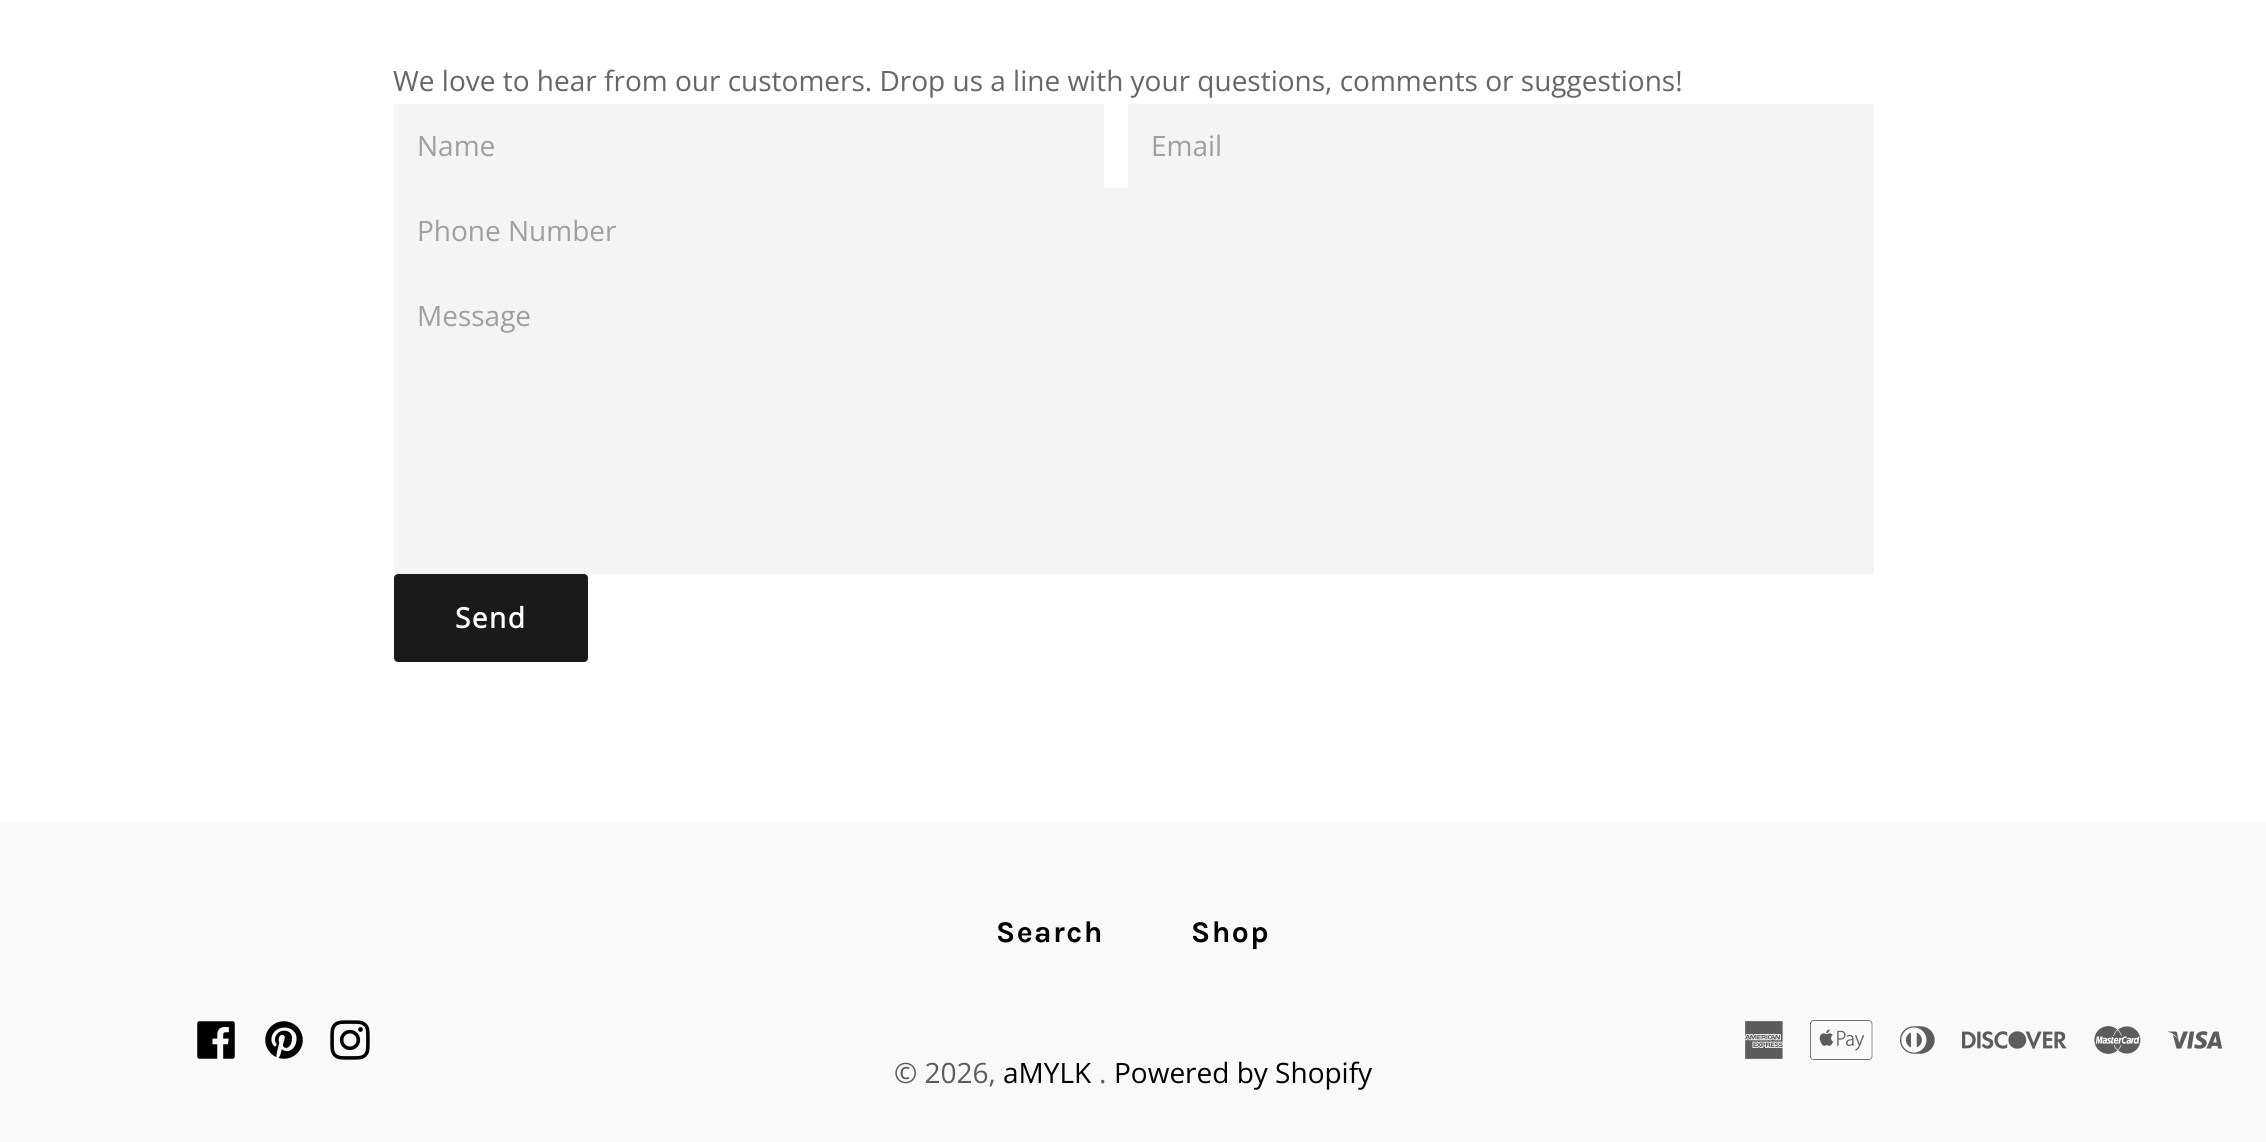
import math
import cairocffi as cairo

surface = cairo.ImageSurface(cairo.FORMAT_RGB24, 2266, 1142)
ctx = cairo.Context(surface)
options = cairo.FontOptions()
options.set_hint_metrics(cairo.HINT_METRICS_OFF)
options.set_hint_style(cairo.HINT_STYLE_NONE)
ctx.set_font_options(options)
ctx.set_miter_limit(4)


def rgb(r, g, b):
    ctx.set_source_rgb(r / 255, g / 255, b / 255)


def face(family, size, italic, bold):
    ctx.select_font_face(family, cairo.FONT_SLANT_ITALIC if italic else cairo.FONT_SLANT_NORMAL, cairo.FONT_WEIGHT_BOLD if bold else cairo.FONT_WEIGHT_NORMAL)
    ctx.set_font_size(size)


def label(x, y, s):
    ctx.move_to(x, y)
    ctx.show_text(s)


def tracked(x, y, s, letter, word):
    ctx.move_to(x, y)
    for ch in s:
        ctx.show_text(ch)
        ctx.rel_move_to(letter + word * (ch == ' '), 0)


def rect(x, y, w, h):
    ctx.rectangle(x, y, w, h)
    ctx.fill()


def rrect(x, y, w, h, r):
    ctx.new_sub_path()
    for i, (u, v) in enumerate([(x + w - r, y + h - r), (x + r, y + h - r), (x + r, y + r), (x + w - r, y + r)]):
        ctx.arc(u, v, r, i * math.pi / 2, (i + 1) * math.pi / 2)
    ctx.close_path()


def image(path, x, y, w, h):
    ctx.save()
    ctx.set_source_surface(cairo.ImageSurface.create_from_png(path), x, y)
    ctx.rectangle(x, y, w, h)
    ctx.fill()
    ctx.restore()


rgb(255, 255, 255)
ctx.paint()
face('Open Sans', 28, 0, 0)
rgb(102, 102, 102)
label(393, 91, 'We love to hear from our customers. Drop us a line with your questions, comments or suggestions!')
rgb(244, 244, 244)
rect(394, 104, 710, 84)
rgb(159, 159, 159)
label(417, 156, 'Name')
rgb(244, 244, 244)
rect(1128, 104, 746, 84)
rgb(159, 159, 159)
label(1151, 156, 'Email')
rgb(244, 244, 244)
rect(394, 188, 1480, 386)
rgb(159, 159, 159)
label(417, 241, 'Phone Number')
label(417, 326, 'Message')
rgb(26, 26, 26)
rrect(394, 574, 194, 88, 4)
ctx.fill()
face('Open Sans', 28, 0, 1)
rgb(255, 255, 255)
tracked(455, 628, 'Send', 1.5, 0)
rgb(249, 249, 249)
rect(0, 822, 2266, 320)
face('Karla', 30, 0, 1)
rgb(0, 0, 0)
tracked(996, 942, 'Search', 1.5, 0)
tracked(1191, 942, 'Shop', 1.5, 0)
image('image0.png', 197, 1021, 38, 38)
image('image1.png', 265, 1021, 38, 38)
image('image2.png', 330, 1020, 40, 40)
image('image3.png', 1745, 1021, 38, 38)
image('image4.png', 1810, 1020, 63, 40)
image('image5.png', 1900, 1026, 35, 28)
image('image6.png', 1962, 1031, 105, 18)
image('image7.png', 2094, 1026, 47, 28)
image('image8.png', 2168, 1031, 55, 18)
face('Open Sans', 28, 0, 0)
rgb(92, 92, 92)
label(894, 1083, '© 2026,')
rgb(0, 0, 0)
label(1003, 1083, 'aMYLK')
rgb(92, 92, 92)
label(1099, 1083, '.')
rgb(0, 0, 0)
label(1114, 1083, 'Powered by Shopify')
surface.write_to_png('render.png')
